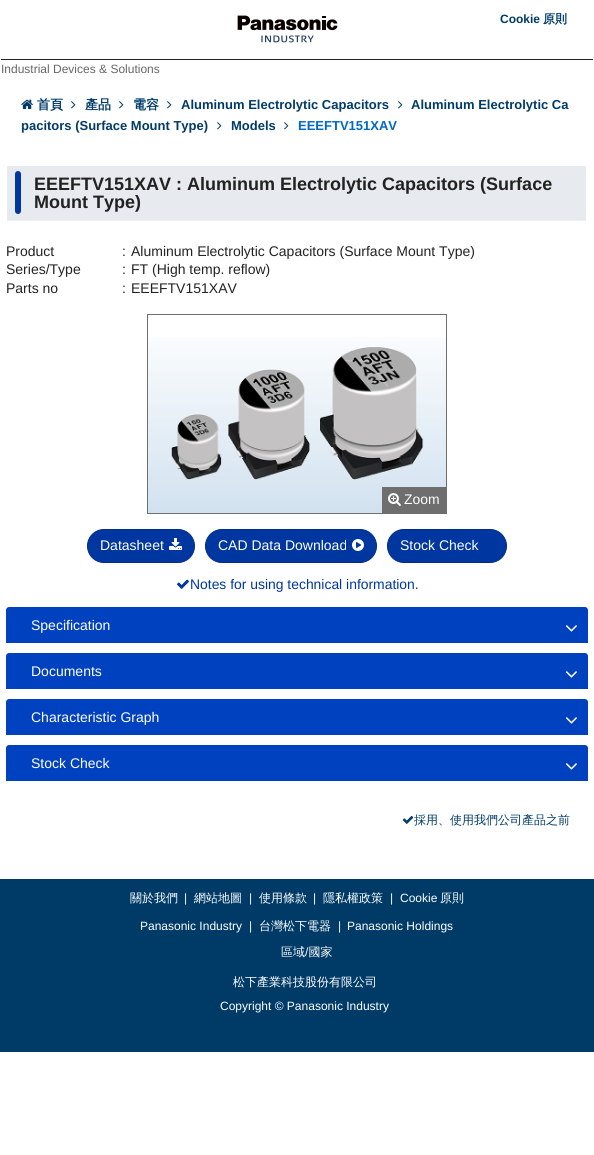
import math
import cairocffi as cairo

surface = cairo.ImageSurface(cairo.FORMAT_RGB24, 594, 1155)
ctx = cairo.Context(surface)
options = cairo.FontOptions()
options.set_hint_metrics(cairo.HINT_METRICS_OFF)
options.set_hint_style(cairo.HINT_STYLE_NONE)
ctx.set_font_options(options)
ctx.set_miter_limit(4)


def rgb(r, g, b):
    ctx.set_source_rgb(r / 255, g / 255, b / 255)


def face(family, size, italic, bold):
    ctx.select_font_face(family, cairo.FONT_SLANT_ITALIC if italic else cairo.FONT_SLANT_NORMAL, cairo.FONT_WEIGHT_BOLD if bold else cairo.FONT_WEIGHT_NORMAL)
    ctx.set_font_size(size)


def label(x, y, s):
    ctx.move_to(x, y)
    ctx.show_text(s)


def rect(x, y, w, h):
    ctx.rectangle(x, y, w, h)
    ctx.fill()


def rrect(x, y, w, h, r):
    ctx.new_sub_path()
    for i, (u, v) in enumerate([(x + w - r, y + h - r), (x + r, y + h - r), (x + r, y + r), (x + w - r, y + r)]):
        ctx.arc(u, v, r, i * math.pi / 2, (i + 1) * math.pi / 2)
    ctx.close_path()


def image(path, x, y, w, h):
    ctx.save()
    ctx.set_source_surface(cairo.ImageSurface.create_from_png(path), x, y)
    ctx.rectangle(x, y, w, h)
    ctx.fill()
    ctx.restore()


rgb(255, 255, 255)
ctx.paint()
image('image0.png', 237, 15, 101, 28)
face('Liberation Sans', 12, 0, 1)
rgb(0, 59, 104)
label(500, 23, 'Cookie')
face('WenQuanYi Zen Hei', 12, 0, 1)
label(543, 23, '原則')
rgb(34, 34, 34)
rect(1, 59, 592, 1)
face('Liberation Sans', 12, 0, 0)
rgb(102, 102, 102)
label(1, 73, 'Industrial Devices & Solutions')
image('image1.png', 21, 99, 12, 10)
face('WenQuanYi Zen Hei', 13, 0, 1)
rgb(0, 59, 104)
label(37, 109, '首頁')
image('image2.png', 71, 101, 5, 8)
label(85, 109, '產品')
image('image2.png', 119, 101, 5, 8)
label(133, 109, '電容')
image('image2.png', 167, 101, 5, 8)
face('Liberation Sans', 13, 0, 1)
label(181, 109, 'Aluminum Electrolytic Capacitors')
image('image2.png', 398, 101, 5, 8)
label(411, 109, 'Aluminum Electrolytic Ca')
label(21, 130, 'pacitors (Surface Mount Type)')
image('image2.png', 217, 122, 5, 8)
label(231, 130, 'Models')
image('image2.png', 284, 122, 5, 8)
rgb(0, 105, 197)
label(298, 130, 'EEEFTV151XAV')
rgb(231, 234, 239)
rect(7, 166, 579, 54)
rgb(240, 240, 240)
rect(7, 220, 579, 1)
rgb(0, 54, 159)
rrect(15, 171, 6, 43, 3)
ctx.fill()
face('Liberation Sans', 18, 0, 1)
rgb(34, 34, 34)
label(34, 190, 'EEEFTV151XAV : Aluminum Electrolytic Capacitors (Surface')
label(34, 208, 'Mount Type)')
face('Liberation Sans', 14, 0, 0)
label(6, 256, 'Product')
label(122, 256, ':')
label(131, 256, 'Aluminum Electrolytic Capacitors (Surface Mount Type)')
label(6, 274, 'Series/Type')
label(122, 274, ':')
label(131, 274, 'FT (High temp. reflow)')
label(6, 293, 'Parts no')
label(122, 293, ':')
label(131, 293, 'EEEFTV151XAV')
ctx.rectangle(147.5, 314.5, 299, 199)
rgb(110, 110, 110)
ctx.set_line_width(1)
ctx.stroke()
image('image3.png', 148, 337, 298, 176)
rect(382, 487, 64, 26)
image('image4.png', 388, 493, 13, 13)
face('Liberation Sans', 13.9, 0, 0)
rgb(255, 255, 255)
label(404, 504, 'Zoom')
rgb(0, 54, 159)
rrect(87.5, 529.5, 107, 33, 16.5)
ctx.fill_preserve()
rgb(0, 45, 133)
ctx.stroke()
face('Liberation Sans', 14, 0, 0)
rgb(255, 255, 255)
label(100, 550, 'Datasheet')
image('image5.png', 169, 538, 13, 12)
rgb(0, 54, 159)
rrect(205.5, 529.5, 171, 33, 16.5)
ctx.fill_preserve()
rgb(0, 45, 133)
ctx.stroke()
rgb(255, 255, 255)
label(218, 550, 'CAD Data Download')
image('image6.png', 352, 539, 12, 12)
rgb(0, 54, 159)
rrect(387.5, 529.5, 119, 33, 16.5)
ctx.fill_preserve()
rgb(0, 45, 133)
ctx.stroke()
rgb(255, 255, 255)
label(400, 550, 'Stock Check')
image('image7.png', 177, 579, 12, 10)
face('Liberation Sans', 13.9, 0, 0)
rgb(0, 54, 159)
label(190, 589, 'Notes for using technical information.')
rgb(0, 65, 192)
ctx.new_path()
ctx.move_to(9, 607)
ctx.line_to(585, 607)
ctx.curve_to(586.5, 607, 588, 608.5, 588, 610)
ctx.line_to(588, 643)
ctx.line_to(6, 643)
ctx.line_to(6, 610)
ctx.curve_to(6, 608.5, 7.5, 607, 9, 607)
ctx.close_path()
ctx.fill()
face('Liberation Sans', 14, 0, 0)
rgb(255, 255, 255)
label(31, 630, 'Specification')
image('image8.png', 565, 625, 12, 7)
rgb(0, 65, 192)
ctx.new_path()
ctx.move_to(9, 653)
ctx.line_to(585, 653)
ctx.curve_to(586.5, 653, 588, 654.5, 588, 656)
ctx.line_to(588, 689)
ctx.line_to(6, 689)
ctx.line_to(6, 656)
ctx.curve_to(6, 654.5, 7.5, 653, 9, 653)
ctx.close_path()
ctx.fill()
rgb(255, 255, 255)
label(31, 676, 'Documents')
image('image8.png', 565, 671, 12, 7)
rgb(0, 65, 192)
ctx.new_path()
ctx.move_to(9, 699)
ctx.line_to(585, 699)
ctx.curve_to(586.5, 699, 588, 700.5, 588, 702)
ctx.line_to(588, 735)
ctx.line_to(6, 735)
ctx.line_to(6, 702)
ctx.curve_to(6, 700.5, 7.5, 699, 9, 699)
ctx.close_path()
ctx.fill()
rgb(255, 255, 255)
label(31, 722, 'Characteristic Graph')
image('image8.png', 565, 717, 12, 7)
rgb(0, 65, 192)
ctx.new_path()
ctx.move_to(9, 745)
ctx.line_to(585, 745)
ctx.curve_to(586.5, 745, 588, 746.5, 588, 748)
ctx.line_to(588, 781)
ctx.line_to(6, 781)
ctx.line_to(6, 748)
ctx.curve_to(6, 746.5, 7.5, 745, 9, 745)
ctx.close_path()
ctx.fill()
rgb(255, 255, 255)
label(31, 768, 'Stock Check')
image('image8.png', 565, 763, 12, 7)
rgb(0, 59, 104)
rect(0, 879, 594, 173)
image('image9.png', 402, 816, 12, 8)
face('WenQuanYi Zen Hei Medium', 12, 0, 0)
label(414, 824, '採用、使用我們公司產品之前')
rgb(255, 255, 255)
label(130, 902, '關於我們')
face('Liberation Sans', 12, 0, 0)
rgb(249, 249, 249)
label(184, 902, '|')
face('WenQuanYi Zen Hei Medium', 12, 0, 0)
rgb(255, 255, 255)
label(194, 902, '網站地圖')
face('Liberation Sans', 12, 0, 0)
rgb(249, 249, 249)
label(249, 902, '|')
face('WenQuanYi Zen Hei Medium', 12, 0, 0)
rgb(255, 255, 255)
label(259, 902, '使用條款')
face('Liberation Sans', 12, 0, 0)
rgb(249, 249, 249)
label(313, 902, '|')
face('WenQuanYi Zen Hei Medium', 12, 0, 0)
rgb(255, 255, 255)
label(323, 902, '隱私權政策')
face('Liberation Sans', 12, 0, 0)
rgb(249, 249, 249)
label(390, 902, '|')
rgb(255, 255, 255)
label(400, 902, 'Cookie')
face('WenQuanYi Zen Hei Medium', 12, 0, 0)
label(440, 902, '原則')
face('Liberation Sans', 12, 0, 0)
label(140, 930, 'Panasonic Industry')
rgb(249, 249, 249)
label(249, 930, '|')
face('WenQuanYi Zen Hei Medium', 12, 0, 0)
rgb(255, 255, 255)
label(259, 930, '台灣松下電器')
face('Liberation Sans', 12, 0, 0)
rgb(249, 249, 249)
label(338, 930, '|')
rgb(255, 255, 255)
label(347, 930, 'Panasonic Holdings')
face('WenQuanYi Zen Hei Medium', 12, 0, 0)
label(281, 956, '區域 國家')
face('Liberation Sans', 12, 0, 0)
label(305, 956, '/')
face('WenQuanYi Zen Hei Medium', 12, 0, 0)
label(233, 986, '松下產業科技股份有限公司')
face('Liberation Sans', 12, 0, 0)
label(220, 1010, 'Copyright © Panasonic Industry')
surface.write_to_png('render.png')
